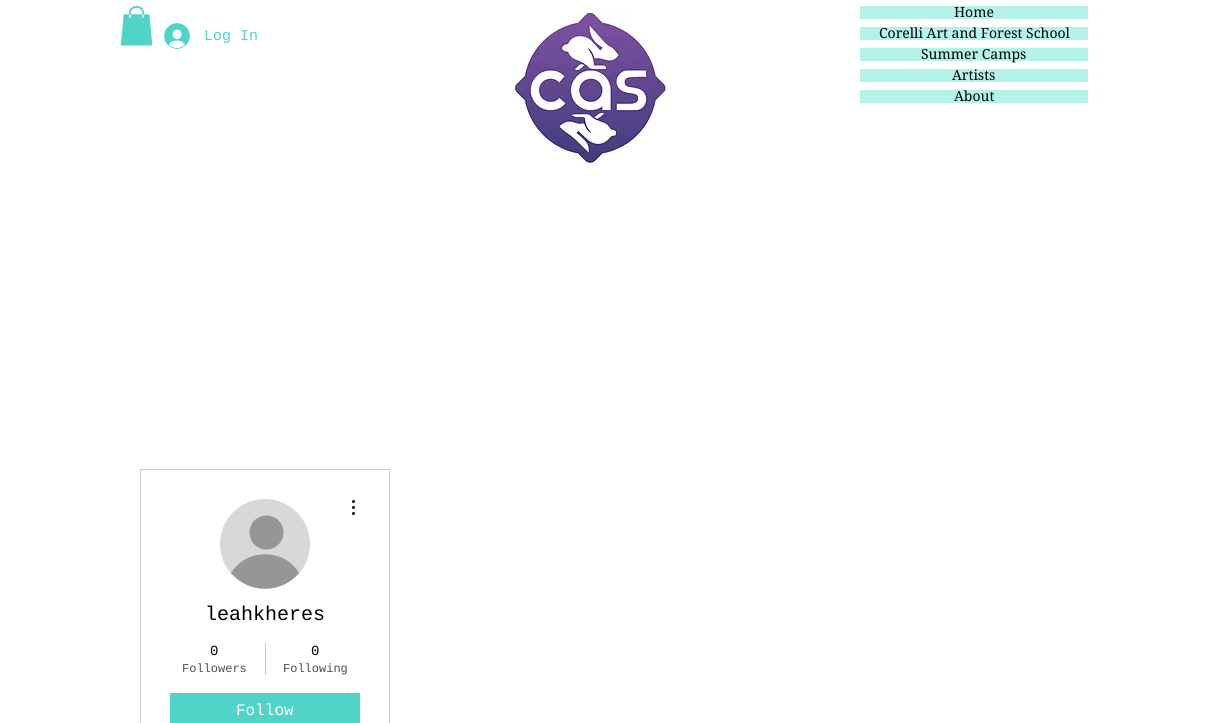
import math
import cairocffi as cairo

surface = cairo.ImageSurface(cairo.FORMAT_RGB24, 1220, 723)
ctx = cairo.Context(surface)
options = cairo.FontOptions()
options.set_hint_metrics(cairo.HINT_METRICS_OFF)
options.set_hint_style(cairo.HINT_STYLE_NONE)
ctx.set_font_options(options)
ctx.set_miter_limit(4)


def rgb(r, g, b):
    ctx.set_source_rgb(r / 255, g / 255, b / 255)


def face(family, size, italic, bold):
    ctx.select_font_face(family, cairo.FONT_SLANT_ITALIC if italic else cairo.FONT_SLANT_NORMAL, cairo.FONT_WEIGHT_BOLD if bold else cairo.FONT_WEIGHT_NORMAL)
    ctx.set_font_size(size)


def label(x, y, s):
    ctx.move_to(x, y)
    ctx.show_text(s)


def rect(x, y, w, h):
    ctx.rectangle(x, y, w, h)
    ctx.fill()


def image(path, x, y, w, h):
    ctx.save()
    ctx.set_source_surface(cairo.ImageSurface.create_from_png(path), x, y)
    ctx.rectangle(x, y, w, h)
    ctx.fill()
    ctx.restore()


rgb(255, 255, 255)
ctx.paint()
image('image0.png', 120, 6, 33, 40)
image('image1.png', 164, 23, 26, 26)
face('Liberation Mono', 15, 0, 0)
rgb(79, 212, 199)
label(204, 40, 'Log In')
image('image2.png', 513, 8, 155, 156)
rgb(181, 243, 232)
rect(860, 6, 228, 13)
face('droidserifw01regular', 14, 0, 0)
rgb(0, 0, 0)
label(954, 17, 'Home')
rgb(181, 243, 232)
rect(860, 27, 228, 13)
rgb(0, 0, 0)
label(879, 38, 'Corelli Art and Forest School')
rgb(181, 243, 232)
rect(860, 48, 228, 13)
rgb(0, 0, 0)
label(921, 59, 'Summer Camps')
rgb(181, 243, 232)
rect(860, 69, 228, 13)
rgb(0, 0, 0)
label(952, 80, 'Artists')
rgb(181, 243, 232)
rect(860, 90, 228, 13)
rgb(0, 0, 0)
label(954, 101, 'About')
ctx.rectangle(140.5, 469.5, 249, 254)
rgb(204, 204, 204)
ctx.set_line_width(1)
ctx.stroke()
rgb(216, 216, 216)
ctx.arc(265, 544, 45, 0, 2 * math.pi)
ctx.fill()
rgb(150, 150, 150)
ctx.arc(266.5, 532.5, 17, 0, 2 * math.pi)
ctx.fill()
ctx.new_path()
ctx.move_to(299, 573)
ctx.curve_to(281, 594, 249, 594, 231, 573)
ctx.curve_to(246, 548, 284, 548, 299, 573)
ctx.close_path()
ctx.fill()
image('image3.png', 352, 500, 3, 15)
face('Liberation Mono', 20, 0, 0)
rgb(0, 0, 0)
label(205, 620, 'leahkheres')
face('Liberation Mono', 14, 0, 0)
label(210, 655, '0')
face('Liberation Mono', 12, 0, 0)
rgb(77, 77, 77)
label(182, 672, 'Followers')
rgb(204, 204, 204)
rect(265, 643, 1, 32)
face('Liberation Mono', 14, 0, 0)
rgb(0, 0, 0)
label(311, 655, '0')
face('Liberation Mono', 12, 0, 0)
rgb(77, 77, 77)
label(283, 672, 'Following')
rgb(79, 212, 199)
rect(170, 693, 190, 30)
face('Liberation Mono', 16, 0, 0)
rgb(255, 255, 255)
label(236, 715, 'Follow')
surface.write_to_png('render.png')
